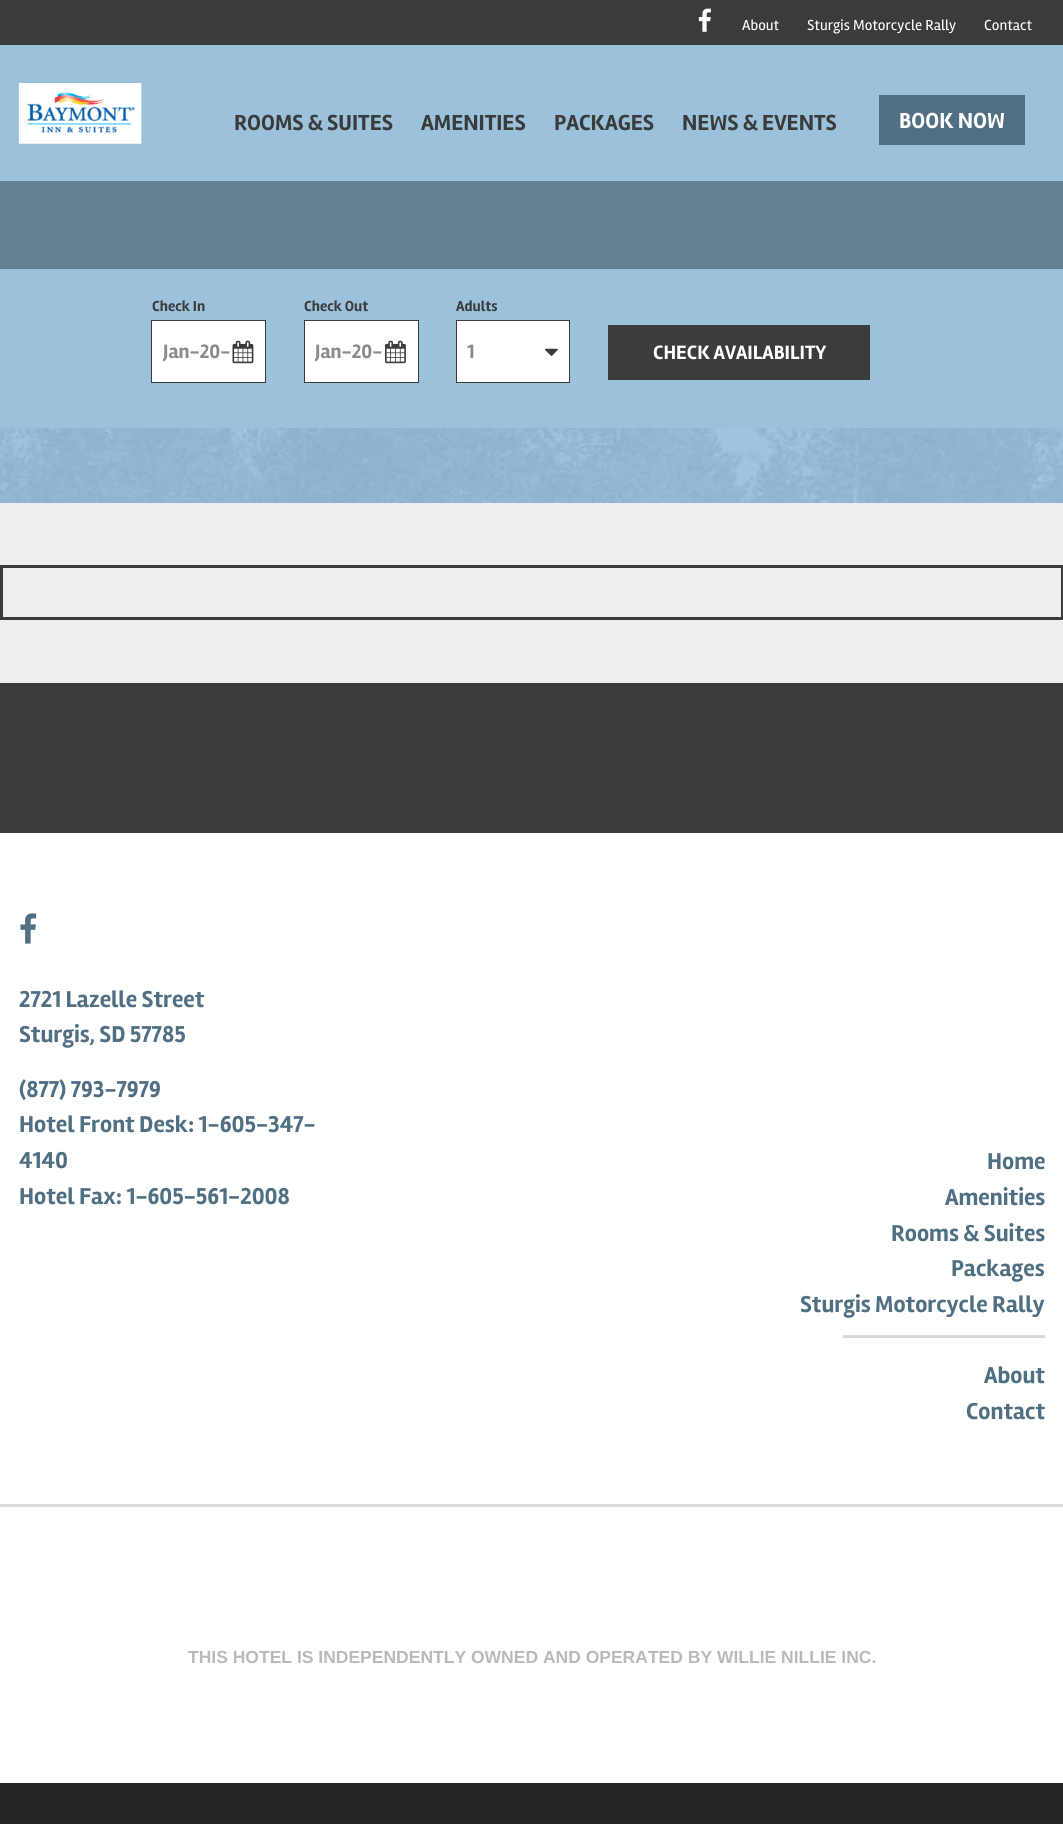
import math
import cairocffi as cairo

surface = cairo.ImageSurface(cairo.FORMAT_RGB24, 1063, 1824)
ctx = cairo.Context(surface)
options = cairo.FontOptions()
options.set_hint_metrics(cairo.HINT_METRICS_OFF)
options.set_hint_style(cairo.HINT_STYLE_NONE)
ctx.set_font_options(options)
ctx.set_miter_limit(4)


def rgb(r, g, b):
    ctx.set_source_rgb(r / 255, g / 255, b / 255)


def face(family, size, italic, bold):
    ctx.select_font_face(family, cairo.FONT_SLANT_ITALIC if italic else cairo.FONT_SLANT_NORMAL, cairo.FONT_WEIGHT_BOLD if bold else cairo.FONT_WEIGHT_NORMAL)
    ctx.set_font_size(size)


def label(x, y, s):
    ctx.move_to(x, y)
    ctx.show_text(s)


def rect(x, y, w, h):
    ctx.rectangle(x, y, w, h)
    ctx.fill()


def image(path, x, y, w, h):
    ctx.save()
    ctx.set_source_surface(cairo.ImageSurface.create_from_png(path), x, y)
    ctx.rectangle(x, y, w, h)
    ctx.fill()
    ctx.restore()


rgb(156, 194, 219)
ctx.paint()
rgb(59, 59, 59)
rect(0, 0, 1063, 45)
image('image0.png', 698, 8, 13, 24)
face('Rambla', 15, 0, 0)
rgb(255, 255, 255)
label(742, 30, 'About')
label(807, 30, 'Sturgis Motorcycle Rally')
label(984, 30, 'Contact')
image('image1.png', 18, 83, 124, 61)
face('Rambla', 22.5, 0, 1)
rgb(59, 59, 59)
label(234, 130, 'ROOMS & SUITES')
label(421, 130, 'AMENITIES')
label(554, 130, 'PACKAGES')
label(682, 130, 'NEWS & EVENTS')
rgb(80, 111, 131)
rect(879, 95, 146, 50)
rgb(255, 255, 255)
label(899, 128, 'BOOK NOW')
rgb(99, 128, 147)
rect(0, 181, 1063, 88)
face('Rambla', 15, 0, 1)
rgb(59, 59, 59)
label(152, 311, 'Check In')
rgb(255, 255, 255)
ctx.rectangle(151.5, 320.5, 114, 62)
ctx.fill_preserve()
rgb(59, 59, 59)
ctx.set_line_width(1)
ctx.stroke()
ctx.save()
ctx.rectangle(163, 339, 92, 25)
ctx.clip()
face('Rambla', 20, 0, 1)
rgb(138, 138, 138)
label(163, 358, 'Jan-20-')
ctx.restore()
image('image2.png', 232, 340, 22, 24)
label(304, 311, 'Check Out')
rgb(255, 255, 255)
ctx.rectangle(304.5, 320.5, 114, 62)
ctx.fill_preserve()
rgb(59, 59, 59)
ctx.stroke()
ctx.save()
ctx.rectangle(315, 339, 93, 25)
ctx.clip()
face('Rambla', 20, 0, 1)
rgb(138, 138, 138)
label(315, 358, 'Jan-20-')
ctx.restore()
image('image3.png', 385, 340, 21, 24)
label(456, 311, 'Adults')
rgb(255, 255, 255)
ctx.rectangle(456.5, 320.5, 113, 62)
ctx.fill_preserve()
rgb(59, 59, 59)
ctx.stroke()
face('Rambla', 20, 0, 1)
rgb(138, 138, 138)
label(467, 358, '1')
image('image4.png', 545, 348, 13, 8)
rgb(59, 59, 59)
rect(608, 325, 262, 55)
rgb(255, 255, 255)
label(653, 359, 'CHECK AVAILABILITY')
image('image5.png', 0, 428, 1063, 75)
rgb(238, 238, 238)
rect(0, 503, 1063, 180)
ctx.rectangle(1.5, 566.5, 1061, 52)
rgb(59, 59, 59)
ctx.set_line_width(3)
ctx.stroke()
rect(0, 683, 1063, 150)
rgb(255, 255, 255)
rect(0, 833, 1063, 950)
image('image6.png', 20, 913, 17, 31)
face('Rambla', 23.75, 0, 1)
rgb(80, 111, 131)
label(19, 1007, '2721 Lazelle Street')
label(19, 1042, 'Sturgis, SD 57785')
label(19, 1097, '(877) 793-7979')
label(19, 1132, 'Hotel Front Desk: 1-605-347-')
label(19, 1168, '4140')
label(19, 1204, 'Hotel Fax: 1-605-561-2008')
label(987, 1169, 'Home')
label(945, 1205, 'Amenities')
label(891, 1241, 'Rooms & Suites')
label(951, 1276, 'Packages')
label(800, 1312, 'Sturgis Motorcycle Rally')
rgb(218, 218, 218)
rect(843, 1335, 202, 3)
rgb(80, 111, 131)
label(984, 1383, 'About')
label(966, 1419, 'Contact')
rgb(218, 218, 218)
rect(0, 1504, 1063, 3)
face('Liberation Sans', 17.5, 0, 1)
rgb(186, 186, 186)
label(188, 1663, 'THIS HOTEL IS INDEPENDENTLY OWNED AND OPERATED BY WILLIE NILLIE INC.')
rgb(37, 37, 37)
rect(0, 1783, 1063, 41)
surface.write_to_png('render.png')
